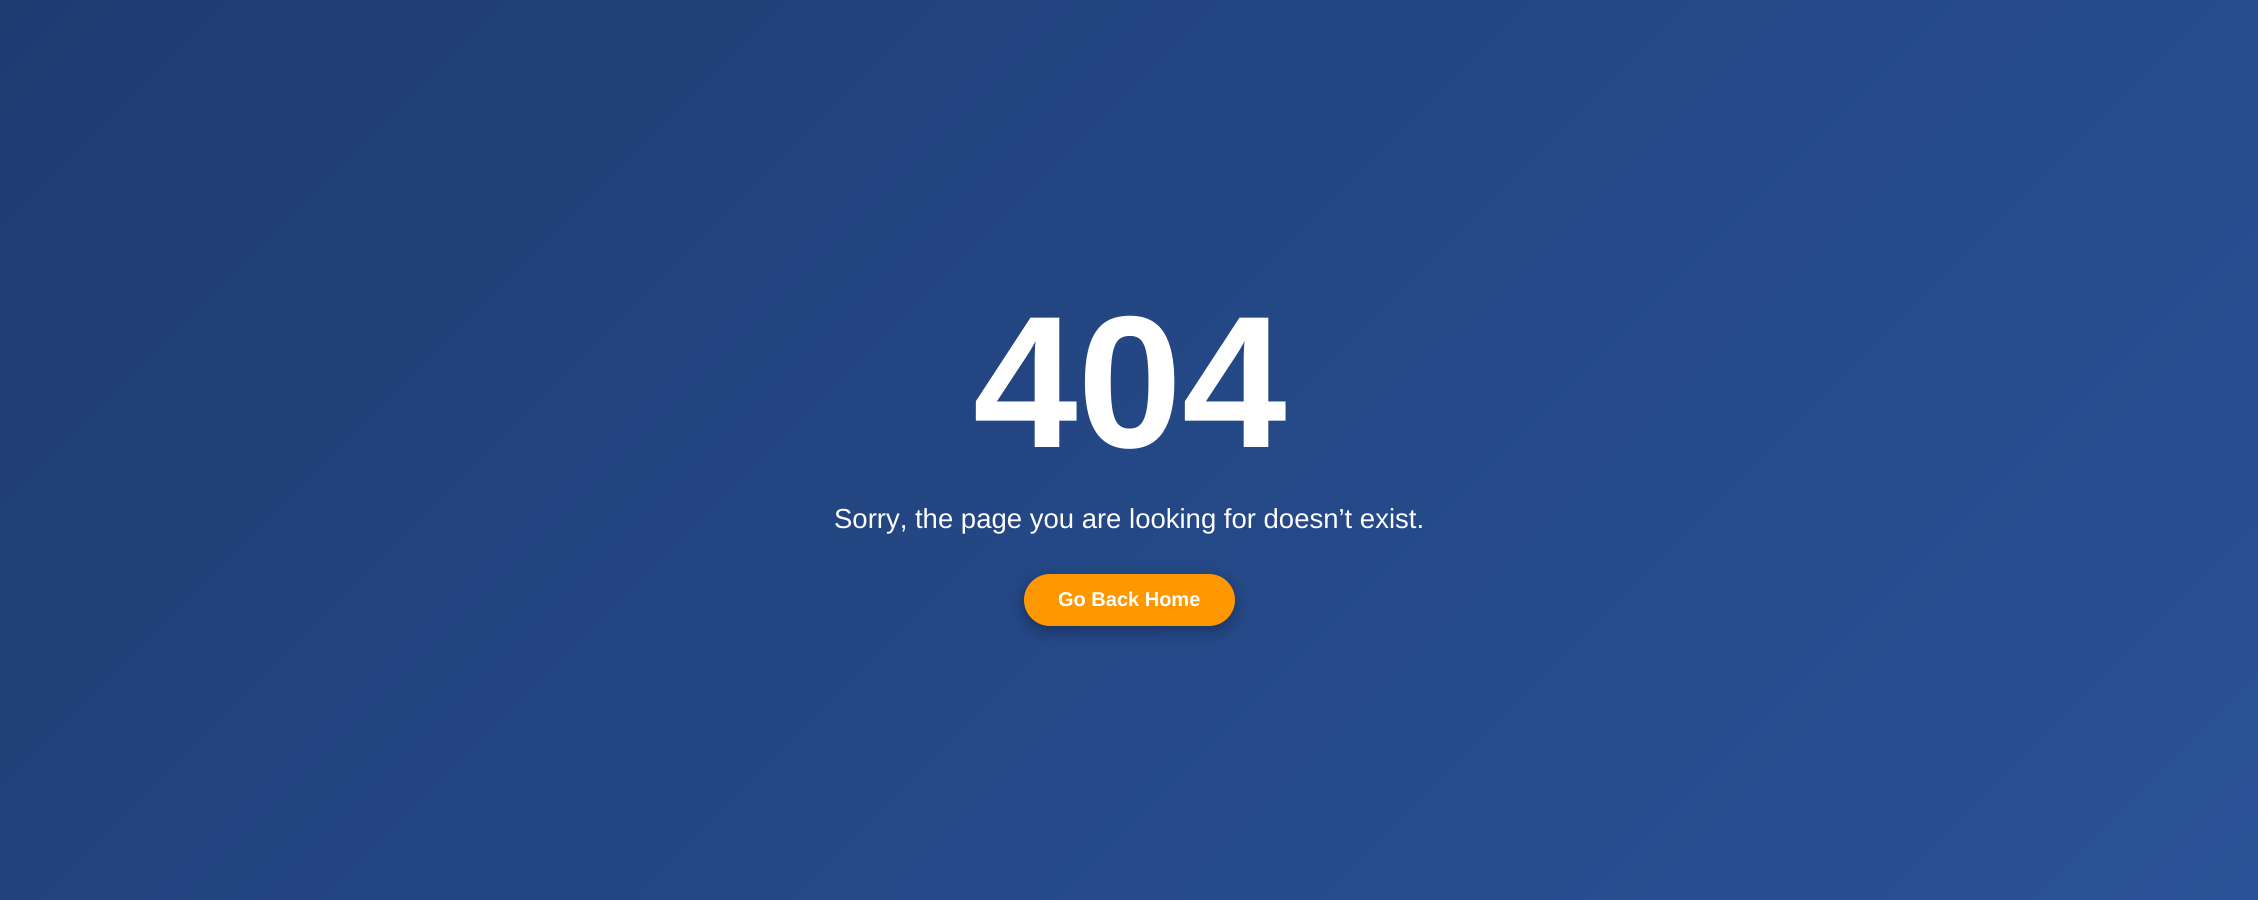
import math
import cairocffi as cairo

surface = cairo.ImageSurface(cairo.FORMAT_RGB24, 2258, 900)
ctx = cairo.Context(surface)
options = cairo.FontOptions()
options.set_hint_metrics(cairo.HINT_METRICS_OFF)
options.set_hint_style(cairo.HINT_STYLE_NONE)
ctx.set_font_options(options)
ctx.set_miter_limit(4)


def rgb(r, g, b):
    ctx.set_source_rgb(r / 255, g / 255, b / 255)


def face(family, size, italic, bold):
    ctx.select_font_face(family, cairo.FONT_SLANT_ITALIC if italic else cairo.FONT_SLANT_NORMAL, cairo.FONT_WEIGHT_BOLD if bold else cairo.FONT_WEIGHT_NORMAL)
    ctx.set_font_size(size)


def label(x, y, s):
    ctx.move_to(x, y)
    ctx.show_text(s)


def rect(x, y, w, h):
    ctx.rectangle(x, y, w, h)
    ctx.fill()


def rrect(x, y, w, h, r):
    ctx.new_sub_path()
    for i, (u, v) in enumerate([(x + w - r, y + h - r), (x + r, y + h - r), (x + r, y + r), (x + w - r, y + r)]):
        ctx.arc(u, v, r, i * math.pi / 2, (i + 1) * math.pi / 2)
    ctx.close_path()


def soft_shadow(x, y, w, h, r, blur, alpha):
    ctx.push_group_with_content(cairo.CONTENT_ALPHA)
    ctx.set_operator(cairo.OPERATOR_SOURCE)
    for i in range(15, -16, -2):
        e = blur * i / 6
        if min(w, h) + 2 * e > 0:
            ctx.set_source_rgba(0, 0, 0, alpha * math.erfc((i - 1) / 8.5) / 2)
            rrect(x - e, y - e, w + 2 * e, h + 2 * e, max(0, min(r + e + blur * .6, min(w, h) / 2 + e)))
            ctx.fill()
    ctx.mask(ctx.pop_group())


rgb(255, 255, 255)
ctx.paint()
gradient = cairo.LinearGradient(340, -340, 1919, 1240)
gradient.add_color_stop_rgba(0, 0.118, 0.235, 0.447, 1)
gradient.add_color_stop_rgba(1, 0.165, 0.322, 0.596, 1)
ctx.set_source(gradient)
rect(0, 0, 2258, 900)
face('Liberation Sans', 188, 0, 1)
rgb(255, 255, 255)
label(973, 447, '404')
face('Liberation Sans', 27.5, 0, 0)
label(834, 528, 'Sorry, the page you are looking for doesn’t exist.')
rgb(0, 0, 0)
soft_shadow(1024, 579, 211, 52, 26, 7.5, 0.3)
rgb(255, 152, 0)
rrect(1024, 574, 211, 52, 26)
ctx.fill()
face('Liberation Sans', 20, 0, 1)
rgb(255, 255, 255)
label(1058, 606, 'Go Back Home')
surface.write_to_png('render.png')
